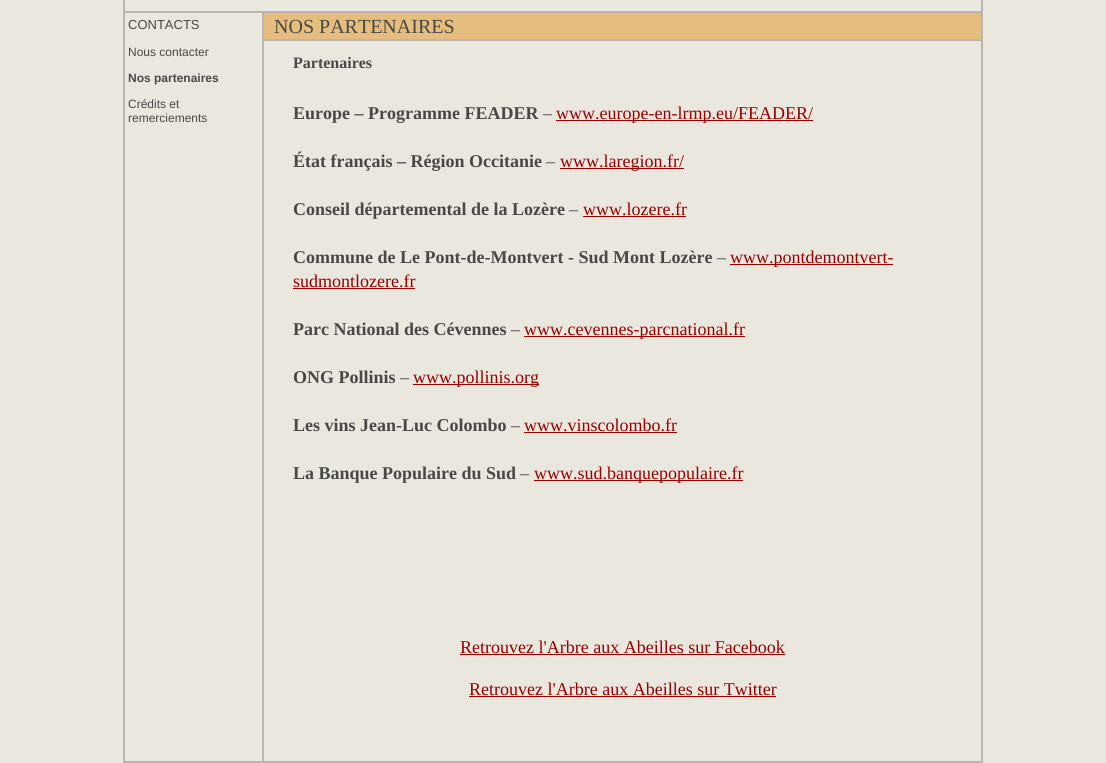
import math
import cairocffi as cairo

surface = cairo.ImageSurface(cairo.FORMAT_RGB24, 1106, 763)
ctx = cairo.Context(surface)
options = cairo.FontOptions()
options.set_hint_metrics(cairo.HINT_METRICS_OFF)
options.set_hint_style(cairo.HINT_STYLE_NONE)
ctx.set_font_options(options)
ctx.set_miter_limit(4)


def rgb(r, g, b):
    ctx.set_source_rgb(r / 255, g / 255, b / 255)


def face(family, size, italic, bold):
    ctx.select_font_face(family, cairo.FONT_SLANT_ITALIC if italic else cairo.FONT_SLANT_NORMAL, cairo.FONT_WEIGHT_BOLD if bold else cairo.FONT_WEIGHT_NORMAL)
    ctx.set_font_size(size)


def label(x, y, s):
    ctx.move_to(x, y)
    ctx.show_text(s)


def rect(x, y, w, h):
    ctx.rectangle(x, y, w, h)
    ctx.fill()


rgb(234, 231, 222)
ctx.paint()
rgb(185, 182, 175)
rect(123, 0, 2, 11)
rect(981, 0, 2, 11)
ctx.rectangle(124, 12, 139, 750)
ctx.stroke()
face('Liberation Sans', 13, 0, 0)
rgb(73, 72, 71)
label(128, 29, 'CONTACTS')
face('Liberation Sans', 12, 0, 0)
label(128, 56, 'Nous contacter')
face('Liberation Sans', 12, 0, 1)
label(128, 82, 'Nos partenaires')
face('Liberation Sans', 12, 0, 0)
label(128, 108, 'Crédits et')
label(128, 122, 'remerciements')
rgb(229, 189, 127)
rect(264, 13, 717, 26)
rgb(185, 182, 175)
rect(264, 11, 719, 2)
rect(981, 11, 2, 752)
rect(264, 39, 719, 2)
face('Liberation Serif', 20, 0, 0)
rgb(73, 72, 71)
label(274, 33, 'NOS PARTENAIRES')
rgb(185, 182, 175)
rect(264, 761, 719, 2)
face('Liberation Serif', 16, 0, 1)
rgb(73, 72, 71)
label(293, 68, 'Partenaires')
face('Liberation Serif', 18, 0, 1)
label(293, 119, 'Europe – Programme FEADER')
face('Liberation Serif', 18, 0, 0)
label(543, 119, '–')
rgb(153, 0, 0)
rect(556, 120, 257, 1)
label(556, 119, 'www.europe-en-lrmp.eu/FEADER/')
face('Liberation Serif', 18, 0, 1)
rgb(73, 72, 71)
label(293, 167, 'État français – Région Occitanie')
face('Liberation Serif', 18, 0, 0)
label(546, 167, '–')
rgb(153, 0, 0)
rect(560, 168, 124, 1)
label(560, 167, 'www.laregion.fr/')
face('Liberation Serif', 18, 0, 1)
rgb(73, 72, 71)
label(293, 215, 'Conseil départemental de la Lozère')
face('Liberation Serif', 18, 0, 0)
label(569, 215, '–')
rgb(153, 0, 0)
label(583, 215, 'www.lozere.fr')
rect(583, 216, 103, 1)
face('Liberation Serif', 18, 0, 1)
rgb(73, 72, 71)
label(293, 263, 'Commune de Le Pont-de-Montvert - Sud Mont Lozère')
face('Liberation Serif', 18, 0, 0)
label(717, 263, '–')
rgb(153, 0, 0)
rect(730, 264, 163, 1)
label(730, 263, 'www.pontdemontvert-')
label(293, 287, 'sudmontlozere.fr')
rect(293, 288, 122, 1)
face('Liberation Serif', 18, 0, 1)
rgb(73, 72, 71)
label(293, 335, 'Parc National des Cévennes')
face('Liberation Serif', 18, 0, 0)
label(511, 335, '–')
rgb(153, 0, 0)
rect(524, 336, 221, 1)
label(524, 335, 'www.cevennes-parcnational.fr')
face('Liberation Serif', 18, 0, 1)
rgb(73, 72, 71)
label(293, 383, 'ONG Pollinis')
face('Liberation Serif', 18, 0, 0)
label(400, 383, '–')
rgb(153, 0, 0)
rect(413, 384, 126, 1)
label(413, 383, 'www.pollinis.org')
face('Liberation Serif', 18, 0, 1)
rgb(73, 72, 71)
label(293, 431, 'Les vins Jean-Luc Colombo')
face('Liberation Serif', 18, 0, 0)
label(511, 431, '–')
rgb(153, 0, 0)
label(524, 431, 'www.vinscolombo.fr')
rect(524, 432, 153, 1)
face('Liberation Serif', 18, 0, 1)
rgb(73, 72, 71)
label(293, 479, 'La Banque Populaire du Sud')
face('Liberation Serif', 18, 0, 0)
label(520, 479, '–')
rgb(153, 0, 0)
rect(534, 480, 209, 1)
label(534, 479, 'www.sud.banquepopulaire.fr')
label(460, 653, 'Retrouvez l\'Arbre aux Abeilles sur Facebook')
rect(460, 654, 325, 1)
label(469, 695, 'Retrouvez l\'Arbre aux Abeilles sur Twitter')
rect(469, 696, 307, 1)
surface.write_to_png('render.png')
